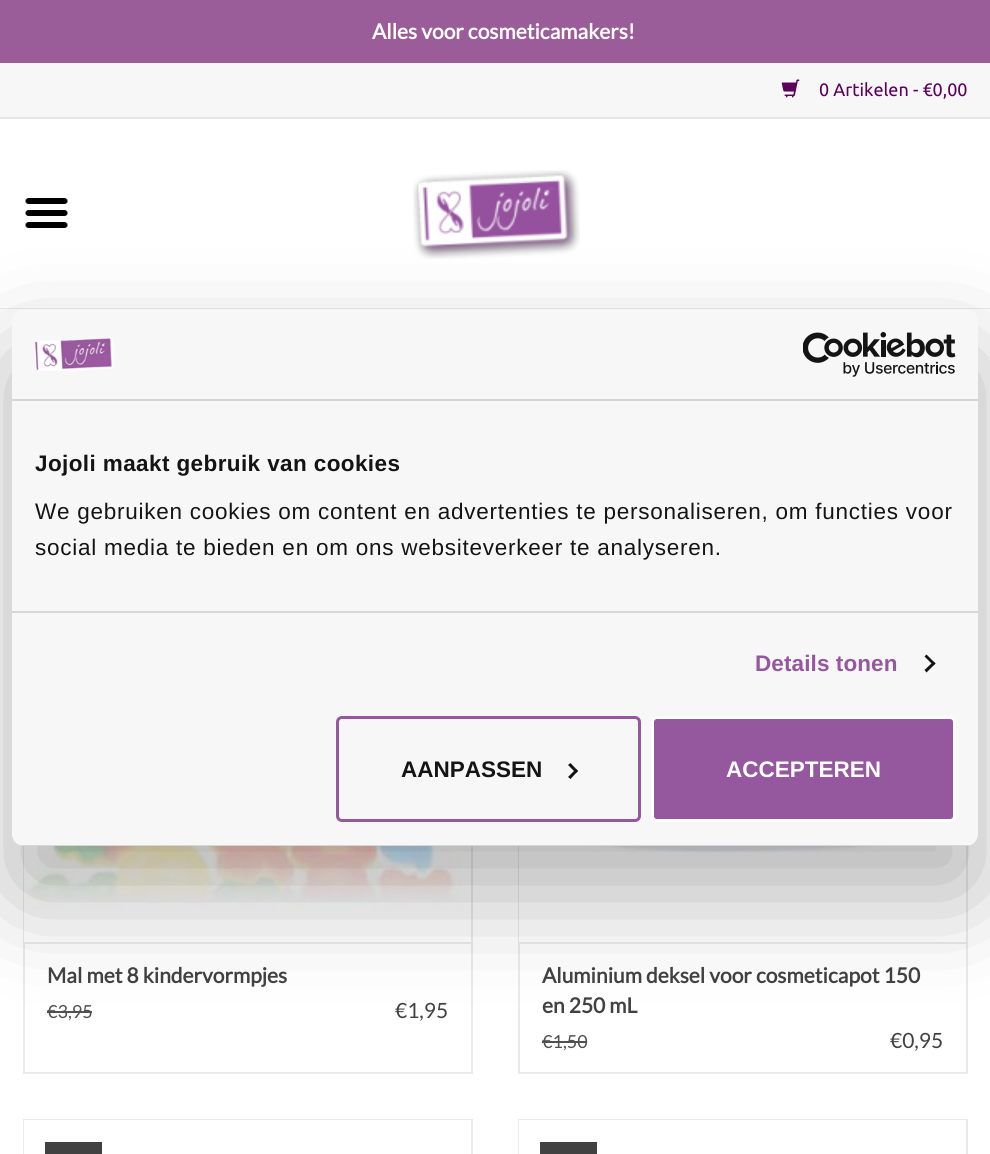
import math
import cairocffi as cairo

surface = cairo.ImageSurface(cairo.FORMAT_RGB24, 990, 1154)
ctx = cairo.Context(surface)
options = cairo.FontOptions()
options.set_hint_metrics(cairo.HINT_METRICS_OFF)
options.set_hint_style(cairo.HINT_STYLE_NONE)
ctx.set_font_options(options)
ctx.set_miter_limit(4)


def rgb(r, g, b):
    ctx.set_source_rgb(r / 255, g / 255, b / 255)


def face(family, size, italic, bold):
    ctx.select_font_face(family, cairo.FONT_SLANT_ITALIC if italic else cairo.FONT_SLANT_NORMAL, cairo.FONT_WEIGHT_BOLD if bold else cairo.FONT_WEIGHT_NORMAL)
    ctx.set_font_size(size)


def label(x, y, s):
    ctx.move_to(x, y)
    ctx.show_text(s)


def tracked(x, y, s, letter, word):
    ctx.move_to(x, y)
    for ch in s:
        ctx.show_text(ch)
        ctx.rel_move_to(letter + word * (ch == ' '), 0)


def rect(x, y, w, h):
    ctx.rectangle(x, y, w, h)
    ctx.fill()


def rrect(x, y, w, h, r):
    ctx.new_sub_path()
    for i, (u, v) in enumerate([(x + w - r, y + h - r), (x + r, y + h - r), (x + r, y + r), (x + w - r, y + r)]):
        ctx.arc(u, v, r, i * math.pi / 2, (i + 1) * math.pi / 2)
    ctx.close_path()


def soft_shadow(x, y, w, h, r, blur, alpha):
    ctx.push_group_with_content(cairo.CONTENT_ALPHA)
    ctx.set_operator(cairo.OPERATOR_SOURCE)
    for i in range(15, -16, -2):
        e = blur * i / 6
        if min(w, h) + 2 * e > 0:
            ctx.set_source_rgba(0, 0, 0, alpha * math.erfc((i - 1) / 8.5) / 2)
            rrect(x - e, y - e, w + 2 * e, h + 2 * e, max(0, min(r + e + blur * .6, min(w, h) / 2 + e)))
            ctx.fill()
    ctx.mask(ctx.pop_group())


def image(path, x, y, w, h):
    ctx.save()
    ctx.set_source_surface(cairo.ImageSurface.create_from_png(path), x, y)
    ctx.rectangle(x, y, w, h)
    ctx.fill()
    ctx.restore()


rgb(255, 255, 255)
ctx.paint()
rgb(154, 93, 154)
rect(0, 0, 990, 63)
face('Lato', 21, 0, 1)
rgb(255, 255, 255)
label(372, 39, 'Alles voor cosmeticamakers!')
rgb(247, 247, 247)
rect(0, 63, 990, 54)
rgb(229, 229, 229)
rect(0, 117, 990, 2)
image('image0.png', 781, 79, 19, 19)
face('Ubuntu', 18, 0, 0)
rgb(92, 0, 92)
label(819, 96, '0 Artikelen - €0,00')
rgb(234, 234, 234)
rect(0, 308, 990, 1)
image('image1.png', 413, 170, 167, 89)
image('image2.png', 25, 198, 43, 30)
rect(471, 846, 2, 96)
rect(23, 845, 1, 97)
image('image5.png', 24, 846, 447, 96)
ctx.rectangle(24, 943, 448, 130)
ctx.stroke()
rgb(80, 80, 80)
rect(47, 1011, 45, 2)
rgb(234, 234, 234)
rect(966, 845, 2, 97)
rect(518, 846, 1, 96)
image('image6.png', 519, 846, 447, 96)
ctx.rectangle(519, 943, 448, 130)
ctx.stroke()
rgb(80, 80, 80)
rect(542, 1041, 45, 2)
rgb(0, 0, 0)
soft_shadow(12, 357, 966, 537, 12, 51, 0.3)
rgb(247, 247, 247)
rrect(12, 309, 966, 537, 12)
ctx.fill()
rgb(214, 214, 214)
rect(12, 399, 966, 2)
image('image3.png', 35, 338, 79, 33)
image('image4.png', 803, 332, 153, 45)
rect(12, 611, 966, 2)
face('Liberation Sans', 22.5, 0, 1)
rgb(20, 20, 20)
tracked(35, 471, 'Jojoli maakt gebruik van cookies', 0.4, 0)
face('Liberation Sans', 22.5, 0, 0)
tracked(35, 519, 'We gebruiken cookies om content en advertenties te personaliseren, om functies voor', 0.75, 0)
tracked(35, 555, 'social media te bieden en om ons websiteverkeer te analyseren.', 0.75, 0)
face('Liberation Sans', 22.5, 0, 1)
rgb(149, 87, 157)
tracked(755, 671, 'Details tonen', 0.1, 0)
rgb(20, 20, 20)
ctx.new_path()
ctx.move_to(926.5, 654.5)
ctx.line_to(935.5, 663.5)
ctx.line_to(933.5, 665.5)
ctx.line_to(924.5, 656.5)
ctx.close_path()
ctx.fill()
ctx.new_path()
ctx.move_to(933.5, 661.5)
ctx.line_to(935.5, 663.5)
ctx.line_to(926.5, 672.5)
ctx.line_to(924.5, 670)
ctx.close_path()
ctx.fill()
ctx.save()
rrect(12, 309, 966, 537, 12)
ctx.clip()
rgb(214, 214, 214)
rect(12, 845, 966, 1)
ctx.restore()
rrect(337.5, 717.5, 302, 103, 4.5)
rgb(149, 87, 157)
ctx.set_line_width(3)
ctx.stroke()
rgb(20, 20, 20)
label(401, 777, 'AANPASSEN')
ctx.new_path()
ctx.move_to(570.5, 763)
ctx.line_to(578, 771)
ctx.line_to(576, 773)
ctx.line_to(568, 765)
ctx.close_path()
ctx.fill()
ctx.new_path()
ctx.move_to(576, 769)
ctx.line_to(578, 771)
ctx.line_to(570.5, 779)
ctx.line_to(568, 777)
ctx.close_path()
ctx.fill()
rgb(149, 87, 157)
rrect(652.5, 717.5, 302, 103, 4.5)
ctx.fill_preserve()
rgb(255, 255, 255)
ctx.stroke()
label(726, 777, 'ACCEPTEREN')
face('Lato', 21, 0, 1)
rgb(65, 65, 65)
label(47, 983, 'Mal met 8 kindervormpjes')
face('Lato', 18, 0, 0)
rgb(80, 80, 80)
label(47, 1018, '€3,95')
face('Lato', 21, 0, 0)
rgb(65, 65, 65)
label(395, 1018, '€1,95')
face('Lato', 21, 0, 1)
label(542, 983, 'Aluminium deksel voor cosmeticapot 150')
label(542, 1013, 'en 250 mL')
face('Lato', 18, 0, 0)
rgb(80, 80, 80)
label(542, 1048, '€1,50')
face('Lato', 21, 0, 0)
rgb(65, 65, 65)
label(890, 1048, '€0,95')
rgb(234, 234, 234)
rect(23, 1119, 450, 1)
rect(471, 1119, 2, 35)
rect(23, 1119, 2, 35)
rgb(255, 255, 255)
rect(24, 1120, 1, 34)
rgb(65, 65, 65)
rect(45, 1142, 57, 12)
rgb(234, 234, 234)
rect(518, 1119, 450, 1)
rect(966, 1119, 2, 35)
rect(518, 1119, 2, 35)
rgb(255, 255, 255)
rect(519, 1120, 1, 34)
rgb(65, 65, 65)
rect(540, 1142, 57, 12)
surface.write_to_png('render.png')
